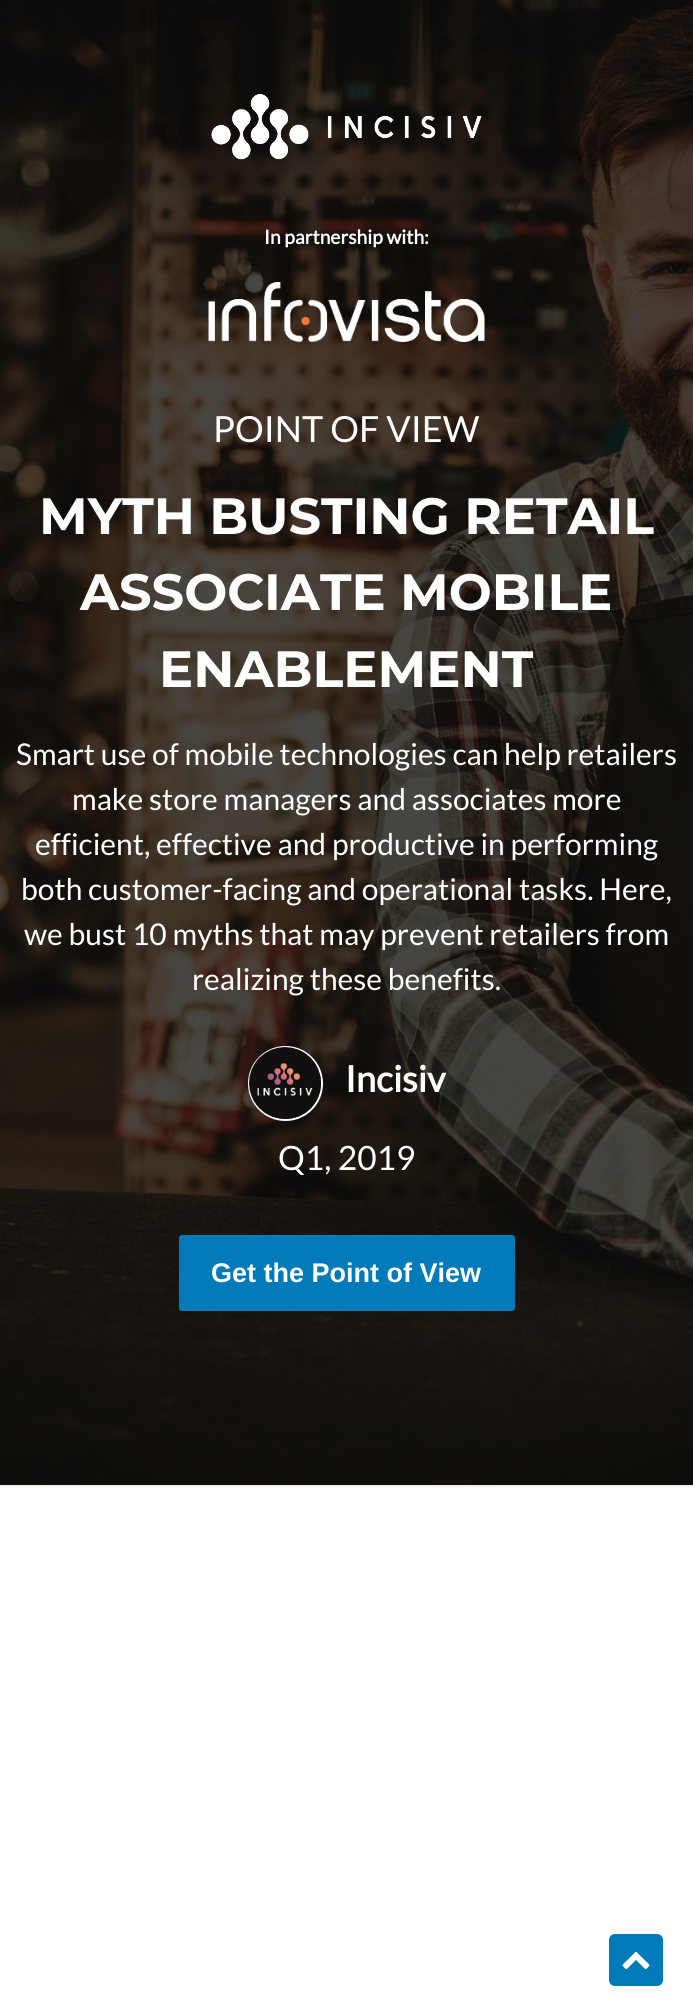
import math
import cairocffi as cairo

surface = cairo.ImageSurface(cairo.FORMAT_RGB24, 693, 2015)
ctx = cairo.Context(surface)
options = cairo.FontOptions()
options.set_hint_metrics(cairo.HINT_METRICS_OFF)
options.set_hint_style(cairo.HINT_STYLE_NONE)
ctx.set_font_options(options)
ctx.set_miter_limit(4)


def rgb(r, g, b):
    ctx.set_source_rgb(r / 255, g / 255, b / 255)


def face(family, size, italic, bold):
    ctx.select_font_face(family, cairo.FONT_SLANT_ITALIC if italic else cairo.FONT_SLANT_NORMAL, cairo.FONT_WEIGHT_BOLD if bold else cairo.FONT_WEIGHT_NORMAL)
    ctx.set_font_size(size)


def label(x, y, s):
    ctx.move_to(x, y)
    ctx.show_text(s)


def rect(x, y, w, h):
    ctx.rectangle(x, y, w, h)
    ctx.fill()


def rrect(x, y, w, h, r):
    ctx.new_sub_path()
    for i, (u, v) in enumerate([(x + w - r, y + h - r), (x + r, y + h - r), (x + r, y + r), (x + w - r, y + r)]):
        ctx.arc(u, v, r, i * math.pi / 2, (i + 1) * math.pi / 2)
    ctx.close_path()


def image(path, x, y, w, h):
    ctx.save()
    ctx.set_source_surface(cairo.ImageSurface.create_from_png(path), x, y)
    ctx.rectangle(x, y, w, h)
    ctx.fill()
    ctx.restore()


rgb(255, 255, 255)
ctx.paint()
rgb(240, 240, 240)
rect(0, 1485, 693, 2)
image('image0.png', 0, 0, 693, 1485)
image('image1.png', 211, 94, 271, 66)
face('Lato', 19.25, 0, 1)
rgb(255, 255, 255)
label(264, 244, 'In partnership with:')
image('image2.png', 208, 282, 277, 60)
face('Lato', 36, 0, 0)
label(213, 442, 'POINT OF VIEW')
face('Montserrat', 51, 0, 1)
label(39, 534, 'MYTH BUSTING RETAIL')
label(80, 610, 'ASSOCIATE MOBILE')
label(159, 687, 'ENABLEMENT')
face('Lato', 30, 0, 0)
label(16, 765, 'Smart use of mobile technologies can help retailers')
label(72, 810, 'make store managers and associates more')
label(35, 855, 'efficient, effective and productive in performing')
label(21, 900, 'both customer-facing and operational tasks. Here,')
label(24, 945, 'we bust 10 myths that may prevent retailers from')
label(192, 990, 'realizing these benefits.')
ctx.new_path()
ctx.arc(285.5, 1083.5, 36.5, 0, 2 * math.pi)
ctx.stroke()
image('image3.png', 249, 1047, 72, 72)
face('Lato', 36, 0, 1)
label(345, 1092, 'Incisiv')
face('Lato', 33.5, 0, 0)
label(278, 1170, 'Q1, 2019')
rgb(0, 122, 185)
rrect(180.5, 1236.5, 333, 73, 1.5)
ctx.fill_preserve()
ctx.set_line_width(3)
ctx.stroke()
face('Liberation Sans', 27, 0, 1)
rgb(255, 255, 255)
label(211, 1282, 'Get the Point of View')
rgb(0, 122, 185)
rrect(609, 1934, 54, 52, 6)
ctx.fill()
image('image4.png', 622, 1951, 28, 19)
surface.write_to_png('render.png')
